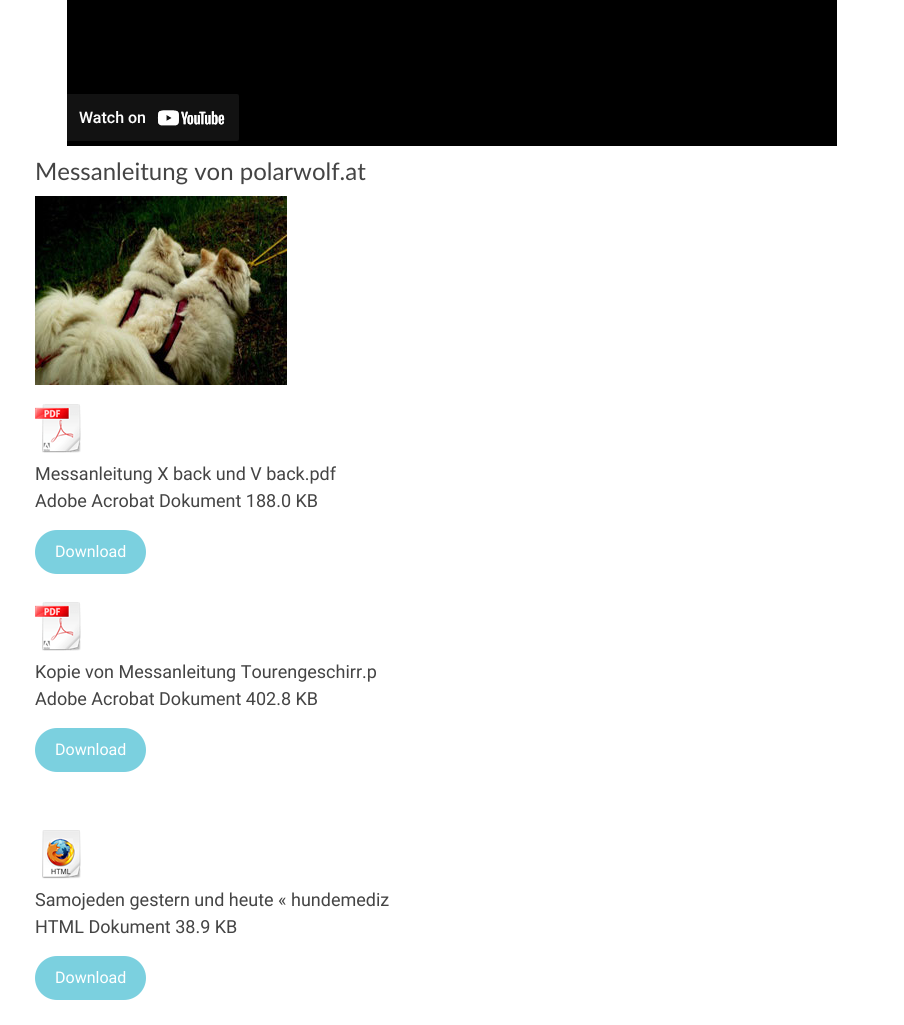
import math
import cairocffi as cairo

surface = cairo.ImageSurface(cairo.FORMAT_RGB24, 904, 1025)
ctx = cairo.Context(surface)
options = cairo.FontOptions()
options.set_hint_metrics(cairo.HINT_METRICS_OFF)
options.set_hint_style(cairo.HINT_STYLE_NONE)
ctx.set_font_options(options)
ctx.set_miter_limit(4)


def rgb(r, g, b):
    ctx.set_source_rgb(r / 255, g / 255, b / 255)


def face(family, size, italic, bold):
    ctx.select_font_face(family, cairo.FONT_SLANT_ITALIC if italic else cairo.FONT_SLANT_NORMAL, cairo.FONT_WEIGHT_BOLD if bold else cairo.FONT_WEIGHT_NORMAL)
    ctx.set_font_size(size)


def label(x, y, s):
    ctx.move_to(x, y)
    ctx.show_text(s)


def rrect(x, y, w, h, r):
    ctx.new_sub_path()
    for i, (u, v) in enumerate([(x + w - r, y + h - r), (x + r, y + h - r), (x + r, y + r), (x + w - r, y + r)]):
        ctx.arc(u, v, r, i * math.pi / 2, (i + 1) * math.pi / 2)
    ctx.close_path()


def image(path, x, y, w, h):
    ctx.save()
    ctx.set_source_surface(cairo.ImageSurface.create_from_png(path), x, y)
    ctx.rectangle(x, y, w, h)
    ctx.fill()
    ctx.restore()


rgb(255, 255, 255)
ctx.paint()
image('image0.png', 67, 0, 770, 146)
face('Lato', 24, 0, 0)
rgb(68, 68, 68)
label(35, 180, 'Messanleitung von polarwolf.at')
image('image1.png', 35, 196, 252, 189)
image('image2.png', 35, 404, 46, 49)
face('Roboto', 18, 0, 0)
label(35, 480, 'Messanleitung X back und V back.pdf')
label(35, 507, 'Adobe Acrobat Dokument 188.0 KB')
rgb(123, 208, 223)
rrect(35, 530, 111, 44, 22)
ctx.fill()
face('Roboto', 16, 0, 0)
rgb(255, 255, 255)
label(55, 557, 'Download')
image('image2.png', 35, 602, 46, 49)
face('Roboto', 18, 0, 0)
rgb(68, 68, 68)
label(35, 678, 'Kopie von Messanleitung Tourengeschirr.p')
label(35, 705, 'Adobe Acrobat Dokument 402.8 KB')
rgb(123, 208, 223)
rrect(35, 728, 111, 44, 22)
ctx.fill()
face('Roboto', 16, 0, 0)
rgb(255, 255, 255)
label(55, 755, 'Download')
image('image3.png', 42, 830, 39, 49)
face('Roboto', 18, 0, 0)
rgb(68, 68, 68)
label(35, 906, 'Samojeden gestern und heute « hundemediz')
label(35, 933, 'HTML Dokument 38.9 KB')
rgb(123, 208, 223)
rrect(35, 956, 111, 44, 22)
ctx.fill()
face('Roboto', 16, 0, 0)
rgb(255, 255, 255)
label(55, 983, 'Download')
surface.write_to_png('render.png')
